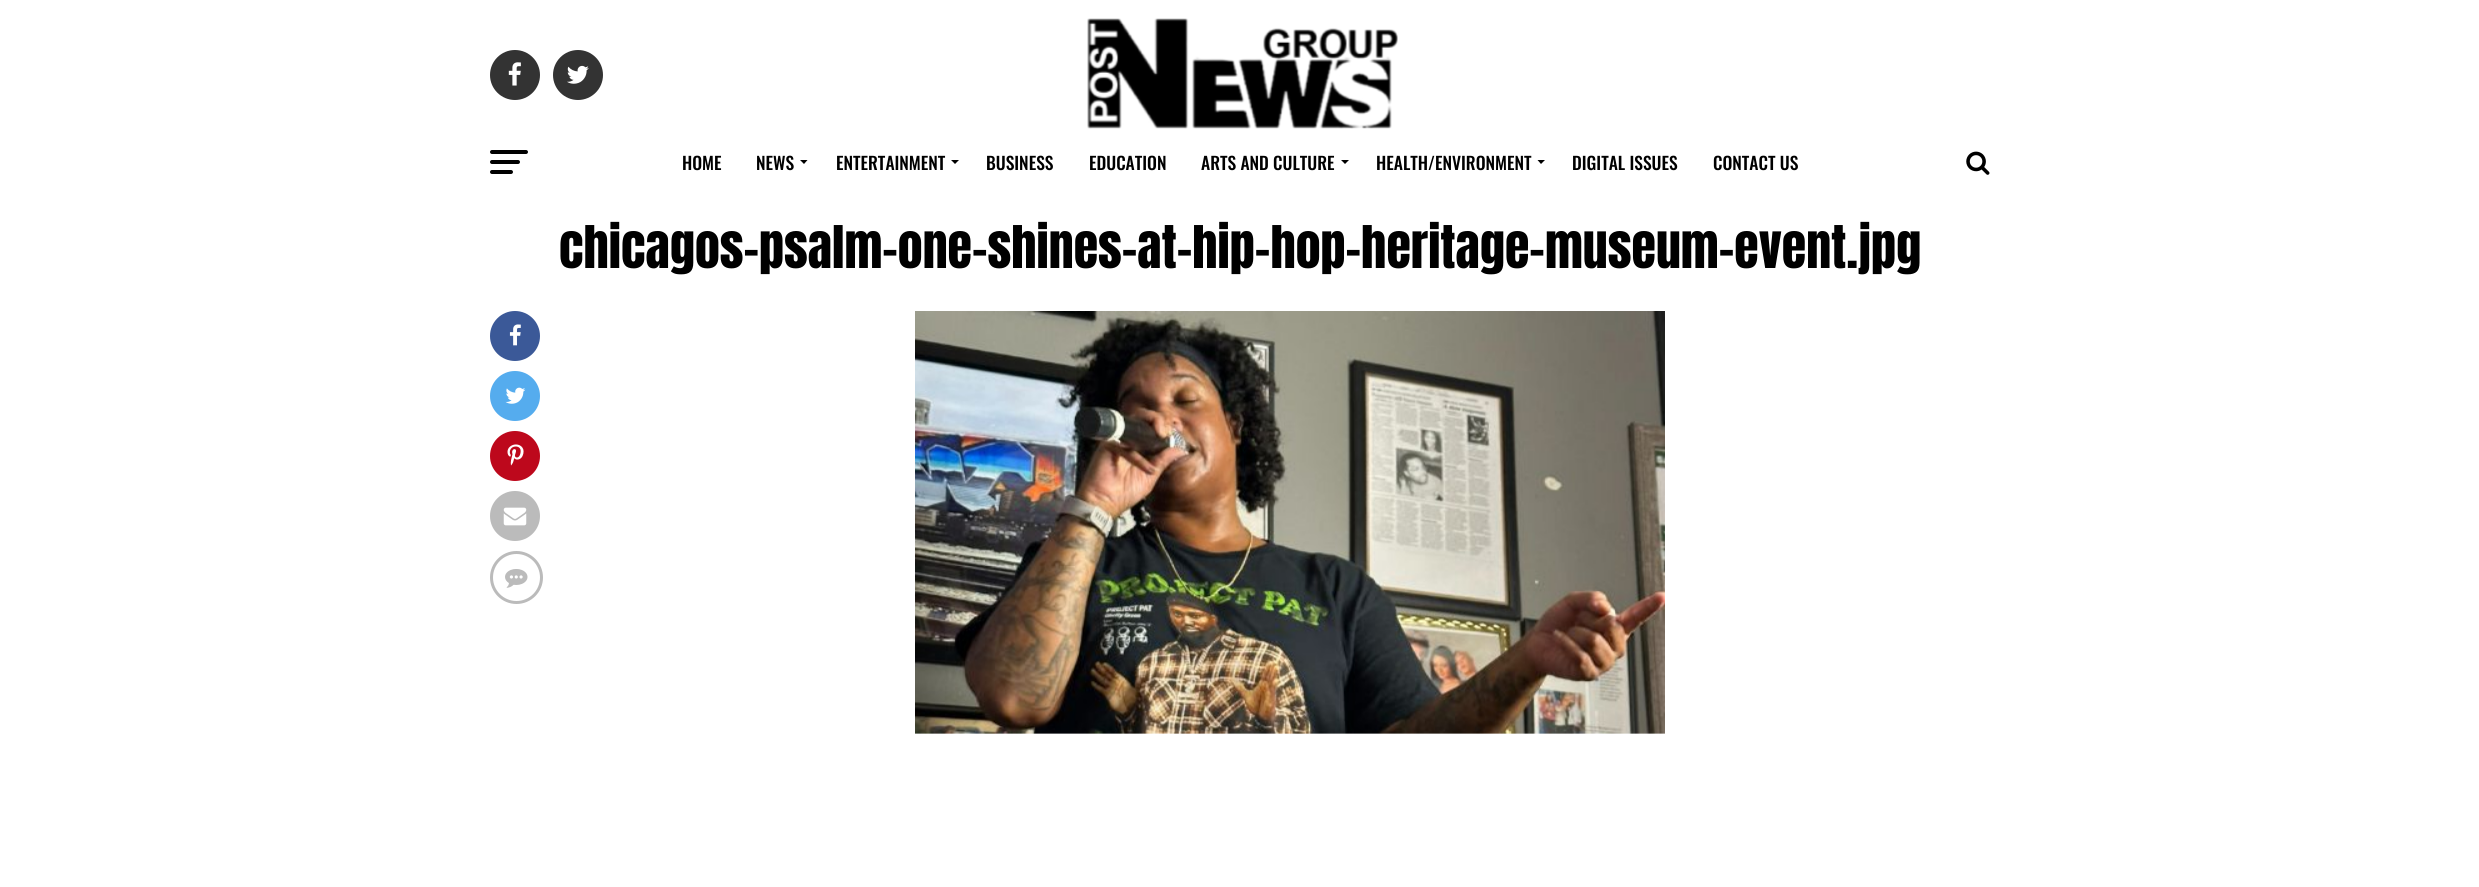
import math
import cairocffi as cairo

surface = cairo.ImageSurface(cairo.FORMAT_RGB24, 2479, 887)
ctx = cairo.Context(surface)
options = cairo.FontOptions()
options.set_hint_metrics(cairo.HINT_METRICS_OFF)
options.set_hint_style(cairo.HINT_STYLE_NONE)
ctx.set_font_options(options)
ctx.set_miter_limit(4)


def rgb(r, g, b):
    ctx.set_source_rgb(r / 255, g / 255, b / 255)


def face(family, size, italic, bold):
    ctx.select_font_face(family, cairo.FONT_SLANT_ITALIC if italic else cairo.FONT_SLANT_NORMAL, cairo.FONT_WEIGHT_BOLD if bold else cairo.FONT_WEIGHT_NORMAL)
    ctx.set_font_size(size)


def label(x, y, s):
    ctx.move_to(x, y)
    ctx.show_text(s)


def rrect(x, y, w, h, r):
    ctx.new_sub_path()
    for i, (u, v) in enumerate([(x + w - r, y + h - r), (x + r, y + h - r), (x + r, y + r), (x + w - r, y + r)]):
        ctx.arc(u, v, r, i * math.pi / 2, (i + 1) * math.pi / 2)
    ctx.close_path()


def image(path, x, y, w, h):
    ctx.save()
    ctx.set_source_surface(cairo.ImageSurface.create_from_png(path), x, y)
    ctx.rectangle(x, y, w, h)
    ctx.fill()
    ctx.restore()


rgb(255, 255, 255)
ctx.paint()
rgb(51, 51, 51)
ctx.arc(515, 75, 25, 0, 2 * math.pi)
ctx.fill()
image('image0.png', 508, 62, 13, 24)
ctx.arc(578, 75, 25, 0, 2 * math.pi)
ctx.fill()
image('image1.png', 567, 65, 22, 19)
image('image2.png', 1087, 18, 311, 111)
rgb(0, 0, 0)
rrect(490, 150, 38, 4, 2)
ctx.fill()
rrect(490, 160, 30, 4, 2)
ctx.fill()
rrect(490, 170, 23, 4, 2)
ctx.fill()
face('Oswald Medium', 17.5, 0, 0)
label(682, 170, 'HOME')
label(756, 170, 'NEWS')
ctx.new_path()
ctx.move_to(800, 160)
ctx.line_to(807.5, 160)
ctx.line_to(804, 164)
ctx.close_path()
ctx.fill()
label(836, 170, 'ENTERTAINMENT')
ctx.new_path()
ctx.move_to(951, 160)
ctx.line_to(959, 160)
ctx.line_to(955, 164)
ctx.close_path()
ctx.fill()
label(986, 170, 'BUSINESS')
label(1089, 170, 'EDUCATION')
label(1201, 170, 'ARTS AND CULTURE')
ctx.new_path()
ctx.move_to(1341, 160)
ctx.line_to(1349, 160)
ctx.line_to(1345, 164)
ctx.close_path()
ctx.fill()
label(1376, 170, 'HEALTH/ENVIRONMENT')
ctx.new_path()
ctx.move_to(1537.5, 160)
ctx.line_to(1545, 160)
ctx.line_to(1541, 164)
ctx.close_path()
ctx.fill()
label(1572, 170, 'DIGITAL ISSUES')
label(1713, 170, 'CONTACT US')
image('image3.png', 1966, 151, 24, 24)
face('Anton', 50, 0, 0)
label(559, 268, 'chicagos-psalm-one-shines-at-hip-hop-heritage-museum-event.jpg')
rgb(59, 89, 152)
ctx.new_path()
ctx.arc(515, 336, 25, 0, 2 * math.pi)
ctx.fill()
image('image4.png', 509, 324, 12, 22)
rgb(85, 172, 238)
ctx.arc(515, 396, 25, 0, 2 * math.pi)
ctx.fill()
image('image5.png', 505, 387, 21, 17)
rgb(189, 8, 28)
ctx.arc(515, 456, 25, 0, 2 * math.pi)
ctx.fill()
image('image6.png', 507, 444, 17, 22)
rgb(187, 187, 187)
ctx.arc(515, 516, 25, 0, 2 * math.pi)
ctx.fill()
image('image7.png', 503, 507, 24, 19)
ctx.arc(516.5, 577.5, 25, 0, 2 * math.pi)
ctx.set_line_width(3)
ctx.stroke()
image('image8.png', 505, 569, 23, 19)
image('image9.png', 915, 311, 750, 423)
surface.write_to_png('render.png')
